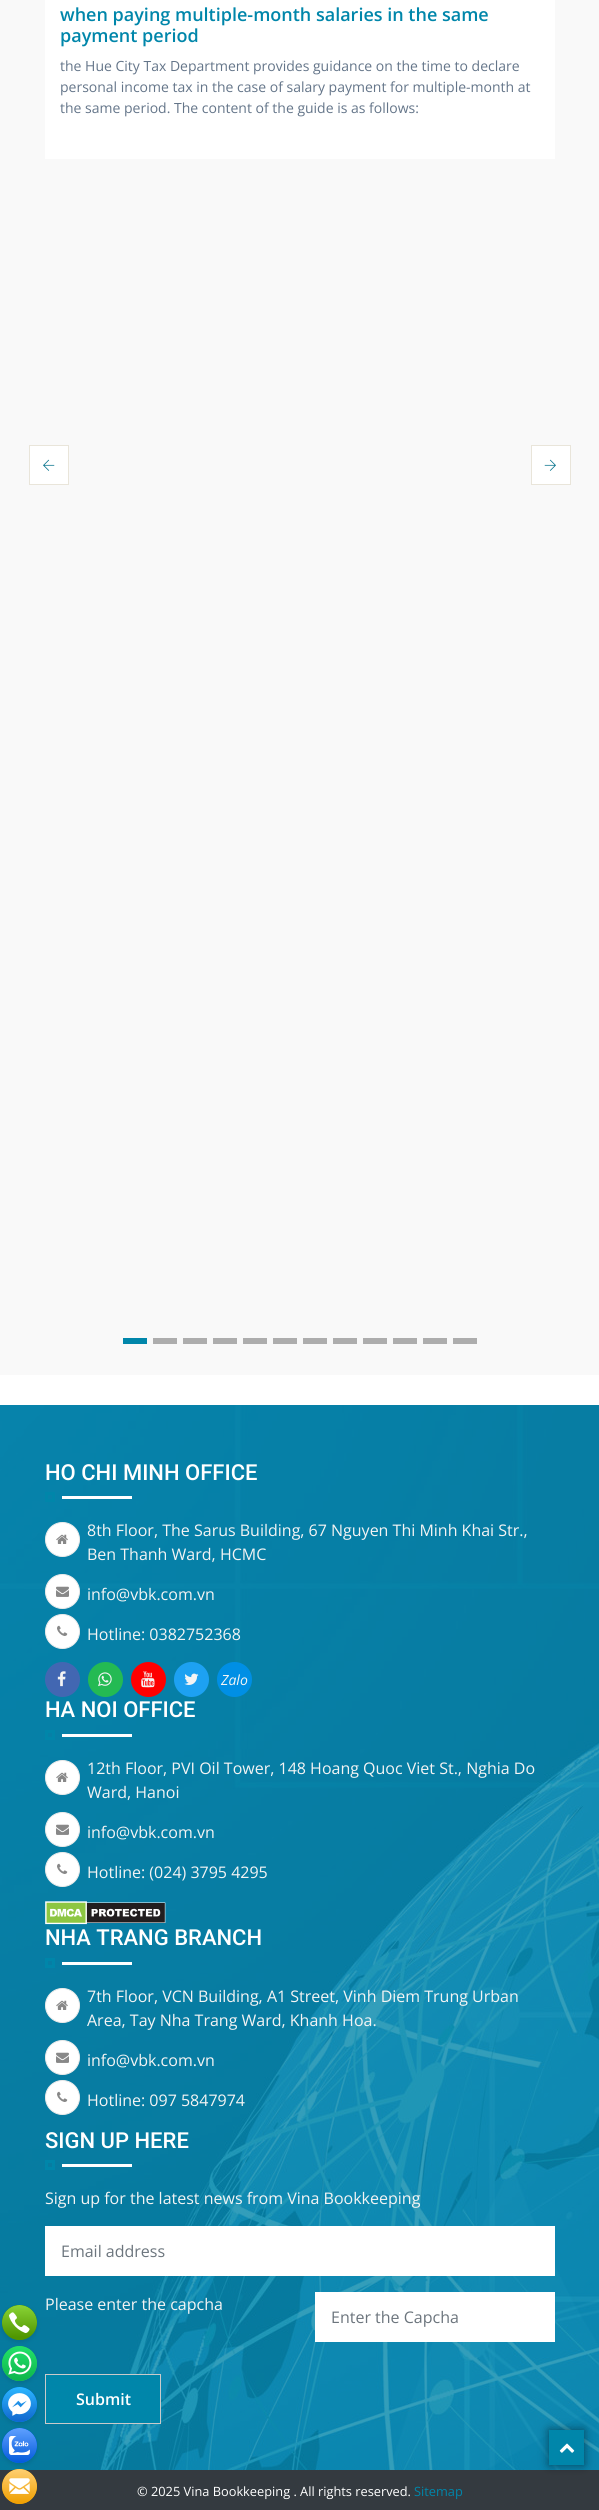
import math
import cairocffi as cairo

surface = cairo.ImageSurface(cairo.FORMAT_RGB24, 599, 2510)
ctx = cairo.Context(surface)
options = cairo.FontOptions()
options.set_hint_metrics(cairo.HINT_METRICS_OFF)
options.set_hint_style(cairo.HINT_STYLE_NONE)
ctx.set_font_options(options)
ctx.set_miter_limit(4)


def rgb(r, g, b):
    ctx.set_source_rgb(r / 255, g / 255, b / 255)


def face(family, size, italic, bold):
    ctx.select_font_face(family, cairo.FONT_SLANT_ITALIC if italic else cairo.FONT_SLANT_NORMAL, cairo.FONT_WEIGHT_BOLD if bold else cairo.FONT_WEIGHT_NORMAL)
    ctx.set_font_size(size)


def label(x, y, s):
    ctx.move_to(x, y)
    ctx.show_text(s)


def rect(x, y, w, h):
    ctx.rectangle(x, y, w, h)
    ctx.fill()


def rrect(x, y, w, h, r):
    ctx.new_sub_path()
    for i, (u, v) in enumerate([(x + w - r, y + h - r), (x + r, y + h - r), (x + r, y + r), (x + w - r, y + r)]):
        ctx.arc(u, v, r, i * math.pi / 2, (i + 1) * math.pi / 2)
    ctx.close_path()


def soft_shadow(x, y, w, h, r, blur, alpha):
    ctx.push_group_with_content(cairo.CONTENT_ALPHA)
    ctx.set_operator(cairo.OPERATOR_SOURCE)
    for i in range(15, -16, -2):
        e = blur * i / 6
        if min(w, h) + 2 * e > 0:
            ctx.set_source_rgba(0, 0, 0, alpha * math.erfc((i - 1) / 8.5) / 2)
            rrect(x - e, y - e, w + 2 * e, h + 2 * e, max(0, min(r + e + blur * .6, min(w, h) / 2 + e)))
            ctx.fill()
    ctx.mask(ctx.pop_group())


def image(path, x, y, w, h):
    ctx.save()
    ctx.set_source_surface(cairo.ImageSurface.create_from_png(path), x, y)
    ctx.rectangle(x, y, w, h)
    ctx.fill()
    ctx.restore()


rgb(255, 255, 255)
ctx.paint()
image('image7.png', 0, 1405, 599, 1065)
rgb(0, 0, 0)
soft_shadow(2, 2307, 35, 35, 17.5, 2.5, 0.11)
rgb(80, 150, 0)
ctx.arc(19.5, 2322.5, 17.5, 0, 2 * math.pi)
ctx.fill()
image('image0.png', 2, 2305, 35, 35)
rgb(0, 134, 170)
ctx.rectangle(45.5, 2374.5, 115, 49)
ctx.fill_preserve()
rgb(202, 202, 202)
ctx.set_line_width(1)
ctx.stroke()
rgb(0, 0, 0)
soft_shadow(2, 2348, 35, 35, 17.5, 2.5, 0.11)
rgb(41, 199, 92)
ctx.arc(19.5, 2363.5, 17.5, 0, 2 * math.pi)
ctx.fill()
image('image1.png', 2, 2346, 35, 35)
rgb(0, 0, 0)
soft_shadow(2, 2389, 35, 35, 17.5, 2.5, 0.11)
rgb(0, 132, 255)
ctx.arc(19.5, 2404.5, 17.5, 0, 2 * math.pi)
ctx.fill()
image('image2.png', 2, 2387, 35, 35)
rgb(52, 58, 64)
rect(0, 2470, 599, 40)
rgb(0, 0, 0)
soft_shadow(2, 2430, 35, 35, 17.5, 2.5, 0.11)
rgb(0, 104, 255)
ctx.arc(19.5, 2445.5, 17.5, 0, 2 * math.pi)
ctx.fill()
image('image3.png', 2, 2428, 35, 35)
rgb(247, 164, 0)
ctx.arc(19.5, 2486.5, 17.5, 0, 2 * math.pi)
ctx.fill()
image('image4.png', 2, 2469, 35, 35)
rgb(249, 249, 249)
rect(0, 0, 599, 1375)
rgb(255, 255, 255)
rect(45, 0, 510, 159)
face('Open Sans SemiBold', 18, 0, 0)
rgb(0, 134, 170)
label(60, 21, 'when paying multiple-month salaries in the same')
label(60, 42, 'payment period')
face('Open Sans', 14, 0, 0)
rgb(100, 117, 137)
label(60, 71, 'the Hue City Tax Department provides guidance on the time to declare')
label(60, 92, 'personal income tax in the case of salary payment for multiple-month at')
label(60, 113, 'the same period. The content of the guide is as follows:')
rgb(255, 255, 255)
ctx.rectangle(29.5, 445.5, 39, 39)
ctx.fill_preserve()
rgb(233, 229, 218)
ctx.stroke()
image('image5.png', 43, 459, 12, 12)
rgb(255, 255, 255)
ctx.rectangle(531.5, 445.5, 39, 39)
ctx.fill_preserve()
rgb(233, 229, 218)
ctx.stroke()
image('image6.png', 544, 459, 12, 12)
rgb(0, 134, 170)
rect(123, 1338, 24, 6)
rgb(173, 173, 173)
rect(153, 1338, 24, 6)
rect(183, 1338, 24, 6)
rect(213, 1338, 24, 6)
rect(243, 1338, 24, 6)
rect(273, 1338, 24, 6)
rect(303, 1338, 24, 6)
rect(333, 1338, 24, 6)
rect(363, 1338, 24, 6)
rect(393, 1338, 24, 6)
rect(423, 1338, 24, 6)
rect(453, 1338, 24, 6)
face('Roboto Medium', 22, 0, 0)
rgb(255, 255, 255)
label(45, 1480, 'HO CHI MINH OFFICE')
ctx.rectangle(46.5, 1493.5, 7, 7)
rgb(0, 134, 170)
ctx.set_line_width(3)
ctx.stroke()
rgb(255, 255, 255)
rect(62, 1496, 70, 3)
ctx.arc(62.5, 1539.5, 17, 0, 2 * math.pi)
ctx.fill_preserve()
rgb(234, 234, 234)
ctx.set_line_width(1)
ctx.stroke()
image('image8.png', 56, 1534, 12, 10)
face('Open Sans', 16, 0, 0)
rgb(244, 244, 244)
label(87, 1536, '8th Floor, The Sarus Building, 67 Nguyen Thi Minh Khai Str.,')
label(87, 1560, 'Ben Thanh Ward, HCMC')
rgb(255, 255, 255)
ctx.new_path()
ctx.arc(62.5, 1591.5, 17, 0, 2 * math.pi)
ctx.fill_preserve()
rgb(234, 234, 234)
ctx.stroke()
image('image9.png', 56, 1586, 13, 11)
rgb(244, 244, 244)
label(87, 1600, 'info@vbk.com.vn')
rgb(255, 255, 255)
ctx.new_path()
ctx.arc(62.5, 1631.5, 17, 0, 2 * math.pi)
ctx.fill_preserve()
rgb(234, 234, 234)
ctx.stroke()
image('image10.png', 57, 1625, 11, 11)
rgb(244, 244, 244)
label(87, 1640, 'Hotline: 0382752368')
rgb(66, 103, 178)
ctx.new_path()
ctx.arc(62.5, 1679.5, 17.5, 0, 2 * math.pi)
ctx.fill()
image('image11.png', 57, 1671, 9, 16)
rgb(36, 186, 83)
ctx.arc(105.5, 1679.5, 17.5, 0, 2 * math.pi)
ctx.fill()
image('image12.png', 98, 1672, 14, 15)
rgb(255, 0, 0)
ctx.arc(148.5, 1679.5, 17.5, 0, 2 * math.pi)
ctx.fill()
image('image13.png', 141, 1671, 14, 17)
rgb(29, 161, 242)
ctx.arc(191.5, 1679.5, 17.5, 0, 2 * math.pi)
ctx.fill()
image('image14.png', 184, 1673, 15, 12)
rgb(0, 143, 229)
ctx.arc(234.5, 1679.5, 17.5, 0, 2 * math.pi)
ctx.fill()
face('Open Sans', 14, 1, 0)
rgb(244, 244, 244)
label(221, 1685, 'Zalo')
face('Roboto Medium', 22, 0, 0)
rgb(255, 255, 255)
label(45, 1717, 'HA NOI OFFICE')
ctx.rectangle(46.5, 1731.5, 7, 7)
rgb(0, 134, 170)
ctx.set_line_width(3)
ctx.stroke()
rgb(255, 255, 255)
rect(62, 1734, 70, 3)
ctx.arc(62.5, 1777.5, 17, 0, 2 * math.pi)
ctx.fill_preserve()
rgb(234, 234, 234)
ctx.set_line_width(1)
ctx.stroke()
image('image8.png', 56, 1772, 12, 10)
face('Open Sans', 16, 0, 0)
rgb(244, 244, 244)
label(87, 1774, '12th Floor, PVI Oil Tower, 148 Hoang Quoc Viet St., Nghia Do')
label(87, 1798, 'Ward, Hanoi')
rgb(255, 255, 255)
ctx.new_path()
ctx.arc(62.5, 1829.5, 17, 0, 2 * math.pi)
ctx.fill_preserve()
rgb(234, 234, 234)
ctx.stroke()
image('image9.png', 56, 1824, 13, 11)
rgb(244, 244, 244)
label(87, 1838, 'info@vbk.com.vn')
rgb(255, 255, 255)
ctx.new_path()
ctx.arc(62.5, 1869.5, 17, 0, 2 * math.pi)
ctx.fill_preserve()
rgb(234, 234, 234)
ctx.stroke()
image('image10.png', 57, 1863, 11, 11)
rgb(244, 244, 244)
label(87, 1878, 'Hotline: (024) 3795 4295')
image('image15.png', 45, 1901, 121, 24)
face('Roboto Medium', 22, 0, 0)
rgb(255, 255, 255)
label(45, 1945, 'NHA TRANG BRANCH')
ctx.rectangle(46.5, 1959.5, 7, 7)
rgb(0, 134, 170)
ctx.set_line_width(3)
ctx.stroke()
rgb(255, 255, 255)
rect(62, 1962, 70, 3)
ctx.arc(62.5, 2005.5, 17, 0, 2 * math.pi)
ctx.fill_preserve()
rgb(234, 234, 234)
ctx.set_line_width(1)
ctx.stroke()
image('image8.png', 56, 2000, 12, 10)
face('Open Sans', 16, 0, 0)
rgb(244, 244, 244)
label(87, 2002, '7th Floor, VCN Building, A1 Street, Vinh Diem Trung Urban')
label(87, 2026, 'Area, Tay Nha Trang Ward, Khanh Hoa.')
rgb(255, 255, 255)
ctx.new_path()
ctx.arc(62.5, 2057.5, 17, 0, 2 * math.pi)
ctx.fill_preserve()
rgb(234, 234, 234)
ctx.stroke()
image('image9.png', 56, 2052, 13, 11)
rgb(244, 244, 244)
label(87, 2066, 'info@vbk.com.vn')
rgb(255, 255, 255)
ctx.new_path()
ctx.arc(62.5, 2097.5, 17, 0, 2 * math.pi)
ctx.fill_preserve()
rgb(234, 234, 234)
ctx.stroke()
image('image10.png', 57, 2091, 11, 11)
rgb(244, 244, 244)
label(87, 2106, 'Hotline: 097 5847974')
face('Roboto Medium', 22, 0, 0)
rgb(255, 255, 255)
label(45, 2148, 'SIGN UP HERE')
ctx.rectangle(46.5, 2161.5, 7, 7)
rgb(0, 134, 170)
ctx.set_line_width(3)
ctx.stroke()
rgb(255, 255, 255)
rect(62, 2164, 70, 3)
face('Open Sans', 16, 0, 0)
rgb(244, 244, 244)
label(45, 2204, 'Sign up for the latest news from Vina Bookkeeping')
rgb(255, 255, 255)
rect(45, 2226, 510, 50)
rgb(108, 117, 125)
label(61, 2257, 'Email address')
rgb(244, 244, 244)
label(45, 2310, 'Please enter the capcha')
rgb(255, 255, 255)
rect(315, 2292, 240, 50)
rgb(108, 117, 125)
label(331, 2323, 'Enter the Capcha')
face('Open Sans SemiBold', 16, 0, 0)
rgb(255, 255, 255)
label(76, 2405, 'Submit')
rgb(0, 0, 0)
soft_shadow(549, 2430, 35, 35, 0, 5, 0.49)
rgb(0, 134, 170)
rect(549, 2430, 35, 35)
image('image16.png', 559, 2443, 16, 10)
face('Open Sans', 12.8, 0, 0)
rgb(255, 255, 255)
label(137, 2496, '© 2025 Vina Bookkeeping . All rights reserved.')
rgb(0, 134, 170)
label(414, 2496, 'Sitemap')
surface.write_to_png('render.png')
